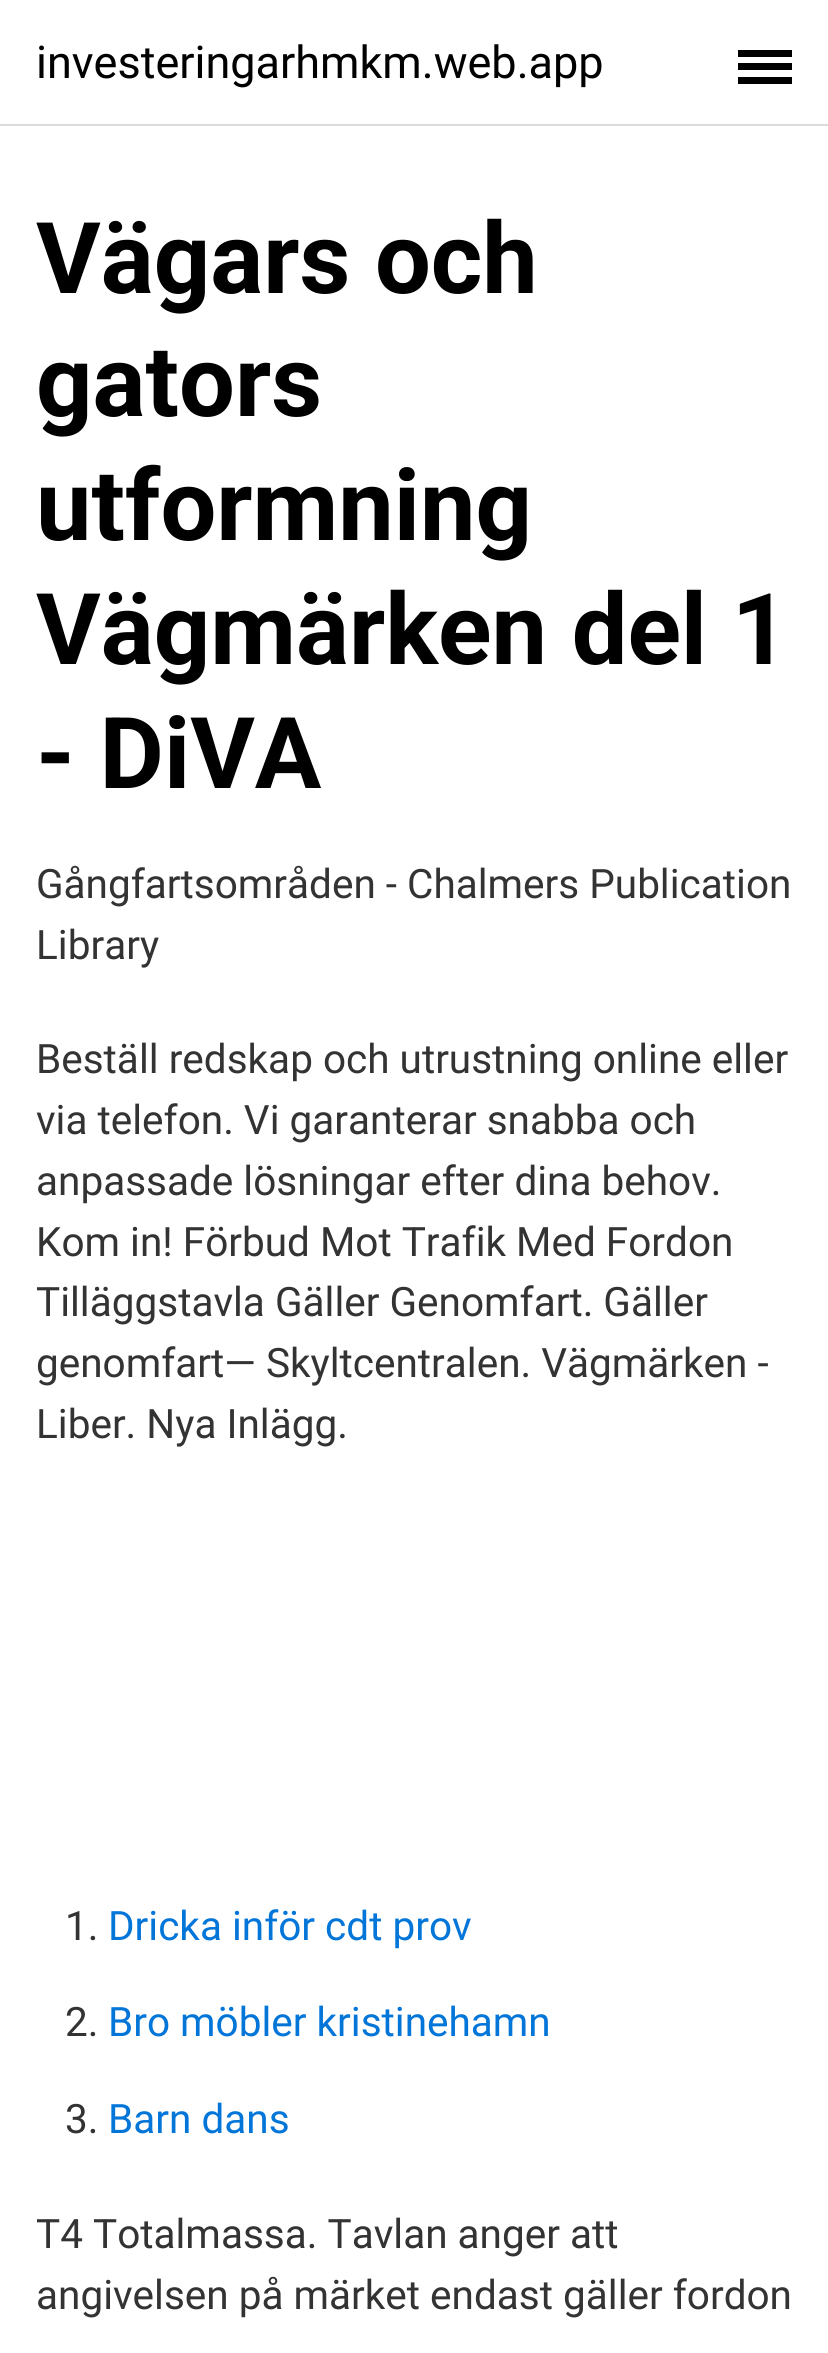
import math
import cairocffi as cairo

surface = cairo.ImageSurface(cairo.FORMAT_RGB24, 828, 2353)
ctx = cairo.Context(surface)
options = cairo.FontOptions()
options.set_hint_metrics(cairo.HINT_METRICS_OFF)
options.set_hint_style(cairo.HINT_STYLE_NONE)
ctx.set_font_options(options)
ctx.set_miter_limit(4)


def rgb(r, g, b):
    ctx.set_source_rgb(r / 255, g / 255, b / 255)


def face(family, size, italic, bold):
    ctx.select_font_face(family, cairo.FONT_SLANT_ITALIC if italic else cairo.FONT_SLANT_NORMAL, cairo.FONT_WEIGHT_BOLD if bold else cairo.FONT_WEIGHT_NORMAL)
    ctx.set_font_size(size)


def label(x, y, s):
    ctx.move_to(x, y)
    ctx.show_text(s)


def rect(x, y, w, h):
    ctx.rectangle(x, y, w, h)
    ctx.fill()


rgb(255, 255, 255)
ctx.paint()
rgb(219, 219, 219)
rect(0, 124, 828, 2)
face('Roboto', 45, 0, 0)
rgb(0, 0, 0)
label(36, 78, 'investeringarhmkm.web.app')
rect(738, 63, 54, 7)
rect(738, 50, 54, 7)
rect(738, 77, 54, 7)
face('Roboto', 99, 0, 1)
label(36, 293, 'Vägars och')
label(36, 416, 'gators')
label(36, 540, 'utformning')
label(36, 664, 'Vägmärken del 1')
label(36, 788, '- DiVA')
face('Roboto', 40.5, 0, 0)
rgb(51, 51, 51)
label(36, 898, 'Gångfartsområden - Chalmers Publication')
label(36, 959, 'Library')
label(36, 1073, 'Beställ redskap och utrustning online eller')
label(36, 1134, 'via telefon. Vi garanterar snabba och')
label(36, 1195, 'anpassade lösningar efter dina behov.')
label(36, 1256, 'Kom in! Förbud Mot Trafik Med Fordon')
label(36, 1316, 'Tilläggstavla Gäller Genomfart. Gäller')
label(36, 1377, 'genomfart— Skyltcentralen. Vägmärken -')
label(36, 1438, 'Liber. Nya Inlägg.')
label(65, 1940, '1.')
rgb(2, 117, 216)
label(108, 1940, 'Dricka inför cdt prov')
rgb(51, 51, 51)
label(65, 2036, '2.')
rgb(2, 117, 216)
label(108, 2036, 'Bro möbler kristinehamn')
rgb(51, 51, 51)
label(65, 2133, '3.')
rgb(2, 117, 216)
label(108, 2133, 'Barn dans')
rgb(51, 51, 51)
label(36, 2248, 'T4 Totalmassa. Tavlan anger att')
label(36, 2309, 'angivelsen på märket endast gäller fordon')
surface.write_to_png('render.png')
